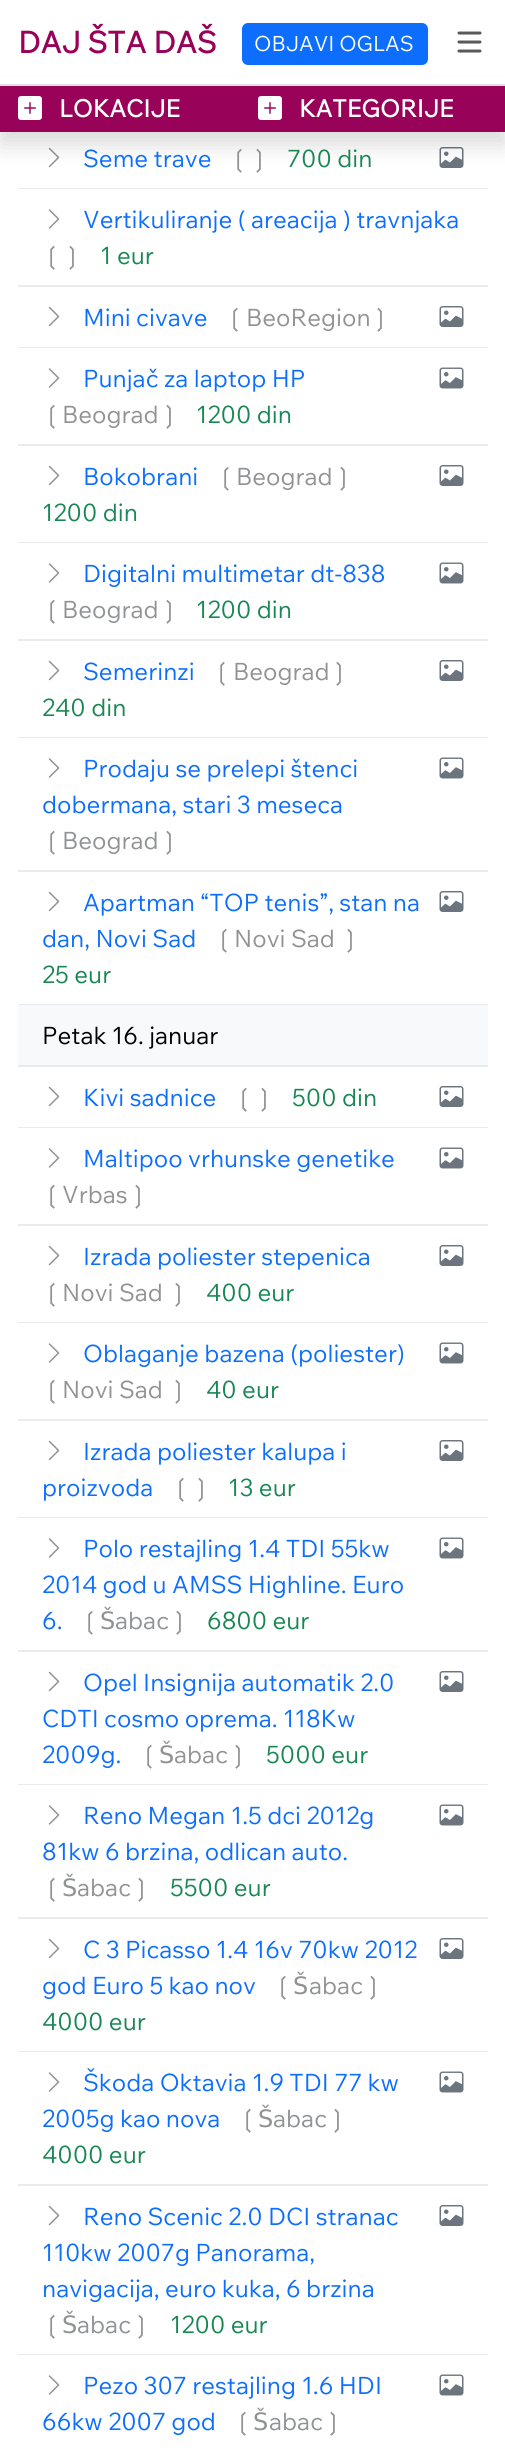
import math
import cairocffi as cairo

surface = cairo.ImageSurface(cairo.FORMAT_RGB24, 505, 2452)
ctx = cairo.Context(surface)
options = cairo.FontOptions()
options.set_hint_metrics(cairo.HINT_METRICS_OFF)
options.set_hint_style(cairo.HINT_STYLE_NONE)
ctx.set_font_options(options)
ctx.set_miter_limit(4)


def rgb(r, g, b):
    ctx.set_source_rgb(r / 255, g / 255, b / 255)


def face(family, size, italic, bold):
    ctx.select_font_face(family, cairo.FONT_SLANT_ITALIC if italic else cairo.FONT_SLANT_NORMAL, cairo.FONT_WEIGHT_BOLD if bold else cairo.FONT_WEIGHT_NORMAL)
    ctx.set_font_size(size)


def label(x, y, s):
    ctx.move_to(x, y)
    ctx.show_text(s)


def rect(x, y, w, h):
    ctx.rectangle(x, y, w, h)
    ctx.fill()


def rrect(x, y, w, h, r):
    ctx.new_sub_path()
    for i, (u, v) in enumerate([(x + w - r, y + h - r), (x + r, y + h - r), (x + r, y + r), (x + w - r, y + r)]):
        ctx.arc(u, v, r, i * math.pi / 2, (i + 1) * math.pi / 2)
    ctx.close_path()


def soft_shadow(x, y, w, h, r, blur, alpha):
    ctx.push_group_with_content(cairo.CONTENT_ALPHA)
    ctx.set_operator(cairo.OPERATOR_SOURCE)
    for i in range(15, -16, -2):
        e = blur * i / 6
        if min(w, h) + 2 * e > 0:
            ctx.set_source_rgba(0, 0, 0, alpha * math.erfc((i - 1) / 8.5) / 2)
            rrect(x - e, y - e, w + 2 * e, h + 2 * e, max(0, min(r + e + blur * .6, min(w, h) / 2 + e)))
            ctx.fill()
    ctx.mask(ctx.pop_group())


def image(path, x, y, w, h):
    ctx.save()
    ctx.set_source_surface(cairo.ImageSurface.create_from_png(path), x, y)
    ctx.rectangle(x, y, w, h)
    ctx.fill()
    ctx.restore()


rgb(255, 255, 255)
ctx.paint()
image('image1.png', 48, 147, 12, 21)
image('image2.png', 439, 147, 25, 21)
rgb(0, 0, 0)
soft_shadow(0, 96, 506, 48, 0, 12, 0.15)
rgb(255, 255, 255)
rect(0, 78, 505, 6)
rgb(222, 226, 230)
rect(0, 84, 505, 2)
face('Wix Madefor Text', 30, 0, 1)
rgb(152, 3, 89)
label(18, 53, 'DAJ ŠTA DAŠ')
rgb(13, 110, 253)
rrect(243, 24, 184, 40, 5)
ctx.fill_preserve()
ctx.stroke()
face('Wix Madefor Text', 21, 0, 0)
rgb(255, 255, 255)
label(254, 51, 'OBJAVI OGLAS')
ctx.new_path()
ctx.move_to(459, 33)
ctx.line_to(480, 33)
ctx.move_to(459, 42)
ctx.line_to(480, 42)
ctx.move_to(459, 51)
ctx.line_to(480, 51)
rgb(89, 89, 89)
ctx.set_line_width(3)
ctx.set_line_cap(cairo.LINE_CAP_ROUND)
ctx.stroke()
rgb(152, 3, 89)
rect(0, 86, 505, 46)
image('image0.png', 18, 96, 24, 24)
face('Wix Madefor Text', 24, 0, 1)
rgb(255, 255, 255)
label(59, 117, 'LOKACIJE')
image('image0.png', 258, 96, 24, 24)
label(299, 117, 'KATEGORIJE')
rgb(233, 236, 239)
rect(18, 188, 470, 1)
face('Wix Madefor Text', 24, 0, 0)
rgb(13, 110, 253)
label(83, 167, 'Seme trave')
face('DejaVu Sans', 24, 0, 0)
rgb(144, 146, 148)
label(229, 167, '❲❳')
face('Wix Madefor Text', 24, 0, 0)
rgb(25, 135, 84)
label(287, 167, '700 din')
rgb(233, 236, 239)
rect(18, 285, 470, 2)
image('image3.png', 48, 209, 12, 20)
rgb(13, 110, 253)
label(83, 228, 'Vertikuliranje ( areacija ) travnjaka')
face('DejaVu Sans', 24, 0, 0)
rgb(144, 146, 148)
label(42, 264, '❲❳')
face('Wix Madefor Text', 24, 0, 0)
rgb(25, 135, 84)
label(100, 264, '1 eur')
rgb(233, 236, 239)
rect(18, 347, 470, 1)
image('image1.png', 48, 306, 12, 21)
rgb(13, 110, 253)
label(83, 326, 'Mini civave')
face('DejaVu Sans', 24, 0, 0)
rgb(144, 146, 148)
label(225, 326, '❲')
face('Wix Madefor Text', 24, 0, 0)
label(246, 326, 'BeoRegion')
face('DejaVu Sans', 24, 0, 0)
label(370, 326, '❳')
image('image2.png', 439, 306, 25, 21)
rgb(233, 236, 239)
rect(18, 444, 470, 2)
image('image3.png', 48, 368, 12, 20)
face('Wix Madefor Text', 24, 0, 0)
rgb(13, 110, 253)
label(83, 387, 'Punjač za laptop HP')
face('DejaVu Sans', 24, 0, 0)
rgb(144, 146, 148)
label(42, 423, '❲')
face('Wix Madefor Text', 24, 0, 0)
label(62, 423, 'Beograd')
face('DejaVu Sans', 24, 0, 0)
label(159, 423, '❳')
face('Wix Madefor Text', 24, 0, 0)
rgb(25, 135, 84)
label(196, 423, '1200 din')
image('image4.png', 439, 367, 25, 22)
rgb(233, 236, 239)
rect(18, 542, 470, 1)
image('image1.png', 48, 465, 12, 21)
rgb(13, 110, 253)
label(83, 485, 'Bokobrani')
face('DejaVu Sans', 24, 0, 0)
rgb(144, 146, 148)
label(216, 485, '❲')
face('Wix Madefor Text', 24, 0, 0)
label(236, 485, 'Beograd')
face('DejaVu Sans', 24, 0, 0)
label(333, 485, '❳')
face('Wix Madefor Text', 24, 0, 0)
rgb(25, 135, 84)
label(42, 521, '1200 din')
image('image2.png', 439, 465, 25, 21)
rgb(233, 236, 239)
rect(18, 639, 470, 2)
image('image3.png', 48, 563, 12, 20)
rgb(13, 110, 253)
label(83, 582, 'Digitalni multimetar dt-838')
face('DejaVu Sans', 24, 0, 0)
rgb(144, 146, 148)
label(42, 618, '❲')
face('Wix Madefor Text', 24, 0, 0)
label(62, 618, 'Beograd')
face('DejaVu Sans', 24, 0, 0)
label(159, 618, '❳')
face('Wix Madefor Text', 24, 0, 0)
rgb(25, 135, 84)
label(196, 618, '1200 din')
image('image4.png', 439, 562, 25, 22)
rgb(233, 236, 239)
rect(18, 737, 470, 1)
image('image1.png', 48, 660, 12, 21)
rgb(13, 110, 253)
label(83, 680, 'Semerinzi')
face('DejaVu Sans', 24, 0, 0)
rgb(144, 146, 148)
label(212, 680, '❲')
face('Wix Madefor Text', 24, 0, 0)
label(233, 680, 'Beograd')
face('DejaVu Sans', 24, 0, 0)
label(329, 680, '❳')
face('Wix Madefor Text', 24, 0, 0)
rgb(25, 135, 84)
label(42, 716, '240 din')
image('image2.png', 439, 660, 25, 21)
rgb(233, 236, 239)
rect(18, 870, 470, 2)
image('image3.png', 48, 758, 12, 20)
rgb(13, 110, 253)
label(83, 777, 'Prodaju se prelepi štenci')
label(42, 813, 'dobermana, stari 3 meseca')
face('DejaVu Sans', 24, 0, 0)
rgb(144, 146, 148)
label(42, 849, '❲')
face('Wix Madefor Text', 24, 0, 0)
label(62, 849, 'Beograd')
face('DejaVu Sans', 24, 0, 0)
label(159, 849, '❳')
image('image4.png', 439, 757, 25, 22)
rgb(233, 236, 239)
rect(18, 1004, 470, 1)
image('image1.png', 48, 891, 12, 21)
face('Wix Madefor Text', 24, 0, 0)
rgb(13, 110, 253)
label(83, 911, 'Apartman “TOP tenis”, stan na')
label(42, 947, 'dan, Novi Sad')
face('DejaVu Sans', 24, 0, 0)
rgb(144, 146, 148)
label(214, 947, '❲')
face('Wix Madefor Text', 24, 0, 0)
label(234, 947, 'Novi Sad')
face('DejaVu Sans', 24, 0, 0)
label(340, 947, '❳')
face('Wix Madefor Text', 24, 0, 0)
rgb(25, 135, 84)
label(42, 983, '25 eur')
image('image2.png', 439, 891, 25, 21)
rgb(248, 249, 250)
rect(18, 1005, 470, 60)
rgb(233, 236, 239)
rect(18, 1065, 470, 2)
rgb(0, 0, 0)
label(42, 1044, 'Petak 16. januar')
rgb(233, 236, 239)
rect(18, 1127, 470, 1)
image('image1.png', 48, 1086, 12, 21)
rgb(13, 110, 253)
label(83, 1106, 'Kivi sadnice')
face('DejaVu Sans', 24, 0, 0)
rgb(144, 146, 148)
label(234, 1106, '❲❳')
face('Wix Madefor Text', 24, 0, 0)
rgb(25, 135, 84)
label(292, 1106, '500 din')
image('image2.png', 439, 1086, 25, 21)
rgb(233, 236, 239)
rect(18, 1224, 470, 2)
image('image3.png', 48, 1148, 12, 20)
rgb(13, 110, 253)
label(83, 1167, 'Maltipoo vrhunske genetike')
face('DejaVu Sans', 24, 0, 0)
rgb(144, 146, 148)
label(42, 1203, '❲')
face('Wix Madefor Text', 24, 0, 0)
label(62, 1203, 'Vrbas')
face('DejaVu Sans', 24, 0, 0)
label(128, 1203, '❳')
image('image4.png', 439, 1147, 25, 22)
rgb(233, 236, 239)
rect(18, 1322, 470, 1)
image('image1.png', 48, 1245, 12, 21)
face('Wix Madefor Text', 24, 0, 0)
rgb(13, 110, 253)
label(83, 1265, 'Izrada poliester stepenica')
face('DejaVu Sans', 24, 0, 0)
rgb(144, 146, 148)
label(42, 1301, '❲')
face('Wix Madefor Text', 24, 0, 0)
label(62, 1301, 'Novi Sad')
face('DejaVu Sans', 24, 0, 0)
label(168, 1301, '❳')
face('Wix Madefor Text', 24, 0, 0)
rgb(25, 135, 84)
label(206, 1301, '400 eur')
image('image2.png', 439, 1245, 25, 21)
rgb(233, 236, 239)
rect(18, 1419, 470, 2)
image('image3.png', 48, 1343, 12, 20)
rgb(13, 110, 253)
label(83, 1362, 'Oblaganje bazena (poliester)')
face('DejaVu Sans', 24, 0, 0)
rgb(144, 146, 148)
label(42, 1398, '❲')
face('Wix Madefor Text', 24, 0, 0)
label(62, 1398, 'Novi Sad')
face('DejaVu Sans', 24, 0, 0)
label(168, 1398, '❳')
face('Wix Madefor Text', 24, 0, 0)
rgb(25, 135, 84)
label(206, 1398, '40 eur')
image('image4.png', 439, 1342, 25, 22)
rgb(233, 236, 239)
rect(18, 1517, 470, 1)
image('image1.png', 48, 1440, 12, 21)
rgb(13, 110, 253)
label(83, 1460, 'Izrada poliester kalupa i')
label(42, 1496, 'proizvoda')
face('DejaVu Sans', 24, 0, 0)
rgb(144, 146, 148)
label(171, 1496, '❲❳')
face('Wix Madefor Text', 24, 0, 0)
rgb(25, 135, 84)
label(228, 1496, '13 eur')
image('image2.png', 439, 1440, 25, 21)
rgb(233, 236, 239)
rect(18, 1650, 470, 2)
image('image3.png', 48, 1538, 12, 20)
rgb(13, 110, 253)
label(83, 1557, 'Polo restajling 1.4 TDI 55kw')
label(42, 1593, '2014 god u AMSS Highline. Euro')
label(42, 1629, '6.')
face('DejaVu Sans', 24, 0, 0)
rgb(144, 146, 148)
label(80, 1629, '❲Š')
face('Wix Madefor Text', 24, 0, 0)
label(115, 1629, 'abac')
face('DejaVu Sans', 24, 0, 0)
label(169, 1629, '❳')
face('Wix Madefor Text', 24, 0, 0)
rgb(25, 135, 84)
label(207, 1629, '6800 eur')
image('image4.png', 439, 1537, 25, 22)
rgb(233, 236, 239)
rect(18, 1784, 470, 1)
image('image1.png', 48, 1671, 12, 21)
rgb(13, 110, 253)
label(83, 1691, 'Opel Insignija automatik 2.0')
label(42, 1727, 'CDTI cosmo oprema. 118Kw')
label(42, 1763, '2009g.')
face('DejaVu Sans', 24, 0, 0)
rgb(144, 146, 148)
label(139, 1763, '❲Š')
face('Wix Madefor Text', 24, 0, 0)
label(174, 1763, 'abac')
face('DejaVu Sans', 24, 0, 0)
label(228, 1763, '❳')
face('Wix Madefor Text', 24, 0, 0)
rgb(25, 135, 84)
label(266, 1763, '5000 eur')
image('image2.png', 439, 1671, 25, 21)
rgb(233, 236, 239)
rect(18, 1917, 470, 2)
image('image3.png', 48, 1805, 12, 20)
rgb(13, 110, 253)
label(83, 1824, 'Reno Megan 1.5 dci 2012g')
label(42, 1860, '81kw 6 brzina, odlican auto.')
face('DejaVu Sans', 24, 0, 0)
rgb(144, 146, 148)
label(42, 1896, '❲Š')
face('Wix Madefor Text', 24, 0, 0)
label(77, 1896, 'abac')
face('DejaVu Sans', 24, 0, 0)
label(131, 1896, '❳')
face('Wix Madefor Text', 24, 0, 0)
rgb(25, 135, 84)
label(170, 1896, '5500 eur')
image('image4.png', 439, 1804, 25, 22)
rgb(233, 236, 239)
rect(18, 2051, 470, 1)
image('image1.png', 48, 1938, 12, 21)
rgb(13, 110, 253)
label(83, 1958, 'C 3 Picasso 1.4 16v 70kw 2012')
label(42, 1994, 'god Euro 5 kao nov')
face('DejaVu Sans', 24, 0, 0)
rgb(144, 146, 148)
label(273, 1994, '❲Š')
face('Wix Madefor Text', 24, 0, 0)
label(309, 1994, 'abac')
face('DejaVu Sans', 24, 0, 0)
label(363, 1994, '❳')
face('Wix Madefor Text', 24, 0, 0)
rgb(25, 135, 84)
label(42, 2030, '4000 eur')
image('image2.png', 439, 1938, 25, 21)
rgb(233, 236, 239)
rect(18, 2184, 470, 2)
image('image3.png', 48, 2072, 12, 20)
rgb(13, 110, 253)
label(83, 2091, 'Škoda Oktavia 1.9 TDI 77 kw')
label(42, 2127, '2005g kao nova')
face('DejaVu Sans', 24, 0, 0)
rgb(144, 146, 148)
label(238, 2127, '❲Š')
face('Wix Madefor Text', 24, 0, 0)
label(273, 2127, 'abac')
face('DejaVu Sans', 24, 0, 0)
label(327, 2127, '❳')
face('Wix Madefor Text', 24, 0, 0)
rgb(25, 135, 84)
label(42, 2163, '4000 eur')
image('image4.png', 439, 2071, 25, 22)
rgb(233, 236, 239)
rect(18, 2354, 470, 1)
image('image1.png', 48, 2205, 12, 21)
rgb(13, 110, 253)
label(83, 2225, 'Reno Scenic 2.0 DCI stranac')
label(42, 2261, '110kw 2007g Panorama,')
label(42, 2297, 'navigacija, euro kuka, 6 brzina')
face('DejaVu Sans', 24, 0, 0)
rgb(144, 146, 148)
label(42, 2333, '❲Š')
face('Wix Madefor Text', 24, 0, 0)
label(77, 2333, 'abac')
face('DejaVu Sans', 24, 0, 0)
label(131, 2333, '❳')
face('Wix Madefor Text', 24, 0, 0)
rgb(25, 135, 84)
label(170, 2333, '1200 eur')
image('image2.png', 439, 2205, 25, 21)
image('image3.png', 48, 2375, 12, 20)
rgb(13, 110, 253)
label(83, 2394, 'Pezo 307 restajling 1.6 HDI')
label(42, 2430, '66kw 2007 god')
face('DejaVu Sans', 24, 0, 0)
rgb(144, 146, 148)
label(233, 2430, '❲Š')
face('Wix Madefor Text', 24, 0, 0)
label(269, 2430, 'abac')
face('DejaVu Sans', 24, 0, 0)
label(323, 2430, '❳')
image('image4.png', 439, 2374, 25, 22)
surface.write_to_png('render.png')
